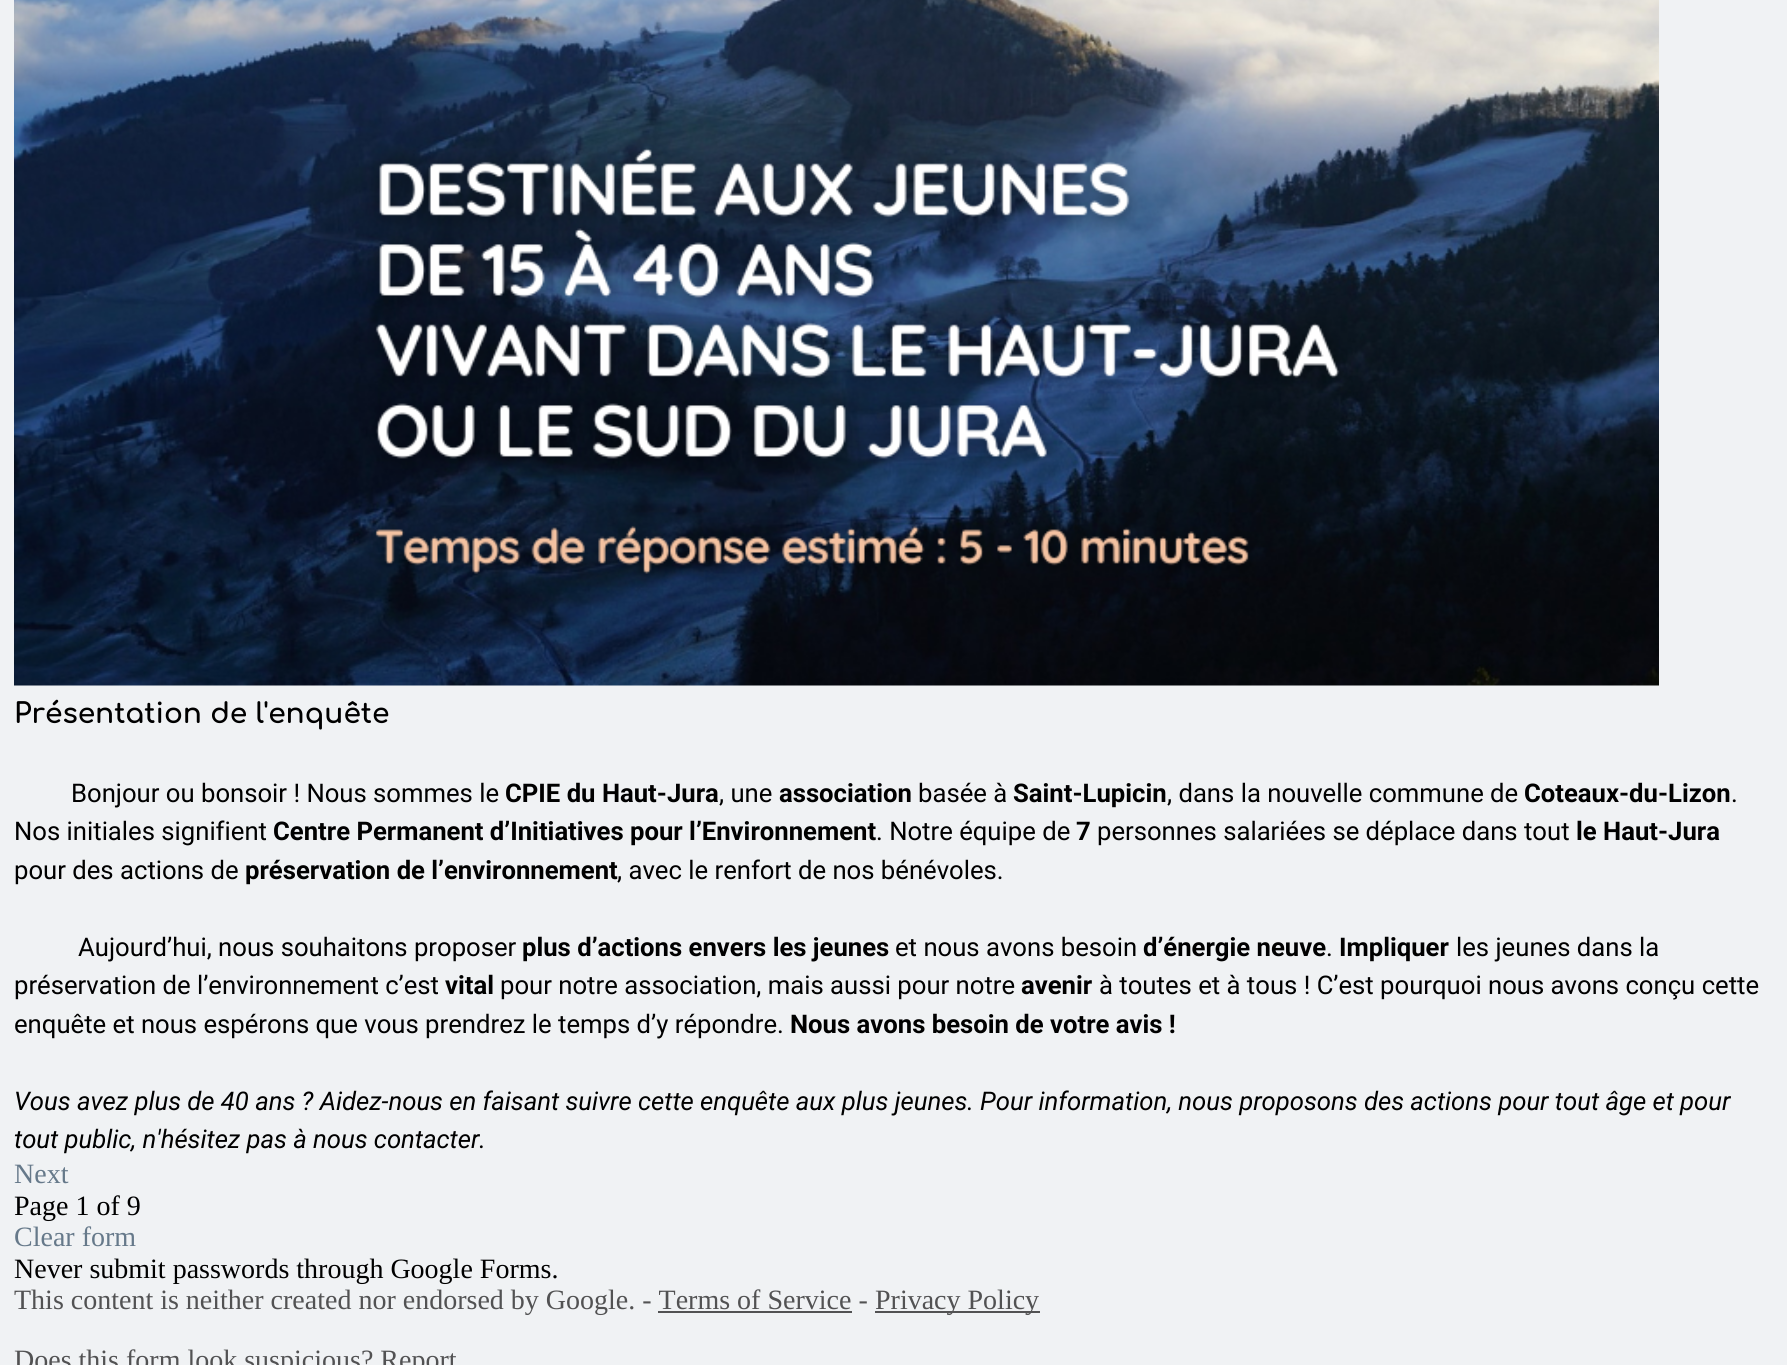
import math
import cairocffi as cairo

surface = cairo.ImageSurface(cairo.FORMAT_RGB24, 1787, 1365)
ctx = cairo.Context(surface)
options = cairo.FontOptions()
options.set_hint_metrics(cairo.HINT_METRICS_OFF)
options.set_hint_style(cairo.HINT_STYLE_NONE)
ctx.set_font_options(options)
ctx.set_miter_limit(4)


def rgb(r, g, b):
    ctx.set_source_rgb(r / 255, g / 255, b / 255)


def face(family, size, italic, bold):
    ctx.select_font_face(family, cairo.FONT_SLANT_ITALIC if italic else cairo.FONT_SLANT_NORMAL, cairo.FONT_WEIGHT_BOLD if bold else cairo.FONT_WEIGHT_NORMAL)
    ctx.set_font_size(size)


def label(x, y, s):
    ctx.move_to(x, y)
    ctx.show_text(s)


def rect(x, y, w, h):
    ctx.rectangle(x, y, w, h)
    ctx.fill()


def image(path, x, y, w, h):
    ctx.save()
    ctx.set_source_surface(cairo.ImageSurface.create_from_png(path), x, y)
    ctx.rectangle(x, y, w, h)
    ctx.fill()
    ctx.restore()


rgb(240, 242, 244)
ctx.paint()
image('image0.png', 14, 0, 1645, 686)
face('Comfortaa', 28, 0, 1)
rgb(0, 0, 0)
label(14, 723, 'Présentation de l\'enquête')
face('Roboto', 25.67, 0, 0)
label(71, 802, 'Bonjour ou bonsoir ! Nous sommes le')
face('Roboto', 25.67, 0, 1)
label(505, 802, 'CPIE du Haut-Jura')
face('Roboto', 25.67, 0, 0)
label(719, 802, ', une')
face('Roboto', 25.67, 0, 1)
label(779, 802, 'association')
face('Roboto', 25.67, 0, 0)
label(918, 802, 'basée à')
face('Roboto', 25.67, 0, 1)
label(1013, 802, 'Saint-Lupicin')
face('Roboto', 25.67, 0, 0)
label(1167, 802, ', dans la nouvelle commune de')
face('Roboto', 25.67, 0, 1)
label(1524, 802, 'Coteaux-du-Lizon')
face('Roboto', 25.67, 0, 0)
label(1731, 802, '.')
label(14, 840, 'Nos initiales signifient')
face('Roboto', 25.67, 0, 1)
label(273, 840, 'Centre Permanent d’Initiatives pour l’Environnement')
face('Roboto', 25.67, 0, 0)
label(876, 840, '. Notre équipe de')
face('Roboto', 25.67, 0, 1)
label(1076, 840, '7')
face('Roboto', 25.67, 0, 0)
label(1097, 840, 'personnes salariées se déplace dans tout')
face('Roboto', 25.67, 0, 1)
label(1576, 840, 'le Haut-Jura')
face('Roboto', 25.67, 0, 0)
label(14, 879, 'pour des actions de')
face('Roboto', 25.67, 0, 1)
label(245, 879, 'préservation de l’environnement')
face('Roboto', 25.67, 0, 0)
label(617, 879, ', avec le renfort de nos bénévoles.')
label(78, 956, 'Aujourd’hui, nous souhaitons proposer')
face('Roboto', 25.67, 0, 1)
label(522, 956, 'plus d’actions envers les jeunes')
face('Roboto', 25.67, 0, 0)
label(895, 956, 'et nous avons besoin')
face('Roboto', 25.67, 0, 1)
label(1143, 956, 'd’énergie neuve')
face('Roboto', 25.67, 0, 0)
label(1326, 956, '.')
face('Roboto', 25.67, 0, 1)
label(1339, 956, 'Impliquer')
face('Roboto', 25.67, 0, 0)
label(1456, 956, 'les jeunes dans la')
label(14, 994, 'préservation de l’environnement c’est')
face('Roboto', 25.67, 0, 1)
label(445, 994, 'vital')
face('Roboto', 25.67, 0, 0)
label(500, 994, 'pour notre association, mais aussi pour notre')
face('Roboto', 25.67, 0, 1)
label(1021, 994, 'avenir')
face('Roboto', 25.67, 0, 0)
label(1099, 994, 'à toutes et à tous ! C’est pourquoi nous avons conçu cette')
label(14, 1033, 'enquête et nous espérons que vous prendrez le temps d’y répondre.')
face('Roboto', 25.67, 0, 1)
label(790, 1033, 'Nous avons besoin de votre avis !')
face('Roboto', 25.67, 1, 0)
label(14, 1110, 'Vous avez plus de 40 ans ? Aidez-nous en faisant suivre cette enquête aux plus jeunes. Pour information, nous proposons des actions pour tout âge et pour')
label(14, 1148, 'tout public, n\'hésitez pas à nous contacter.')
face('Liberation Serif', 28, 0, 0)
rgb(102, 121, 138)
label(14, 1183, 'Next')
rgb(0, 0, 0)
label(14, 1215, 'Page 1 of 9')
rgb(102, 121, 138)
label(14, 1246, 'Clear form')
rgb(0, 0, 0)
label(14, 1278, 'Never submit passwords through Google Forms.')
rgb(82, 82, 83)
label(14, 1309, 'This content is neither created nor endorsed by Google. - Terms of Service -')
rect(875, 1311, 165, 2)
label(875, 1309, 'Privacy Policy')
rect(658, 1311, 194, 2)
label(14, 1369, 'Does this form look suspicious? Report')
surface.write_to_png('render.png')
